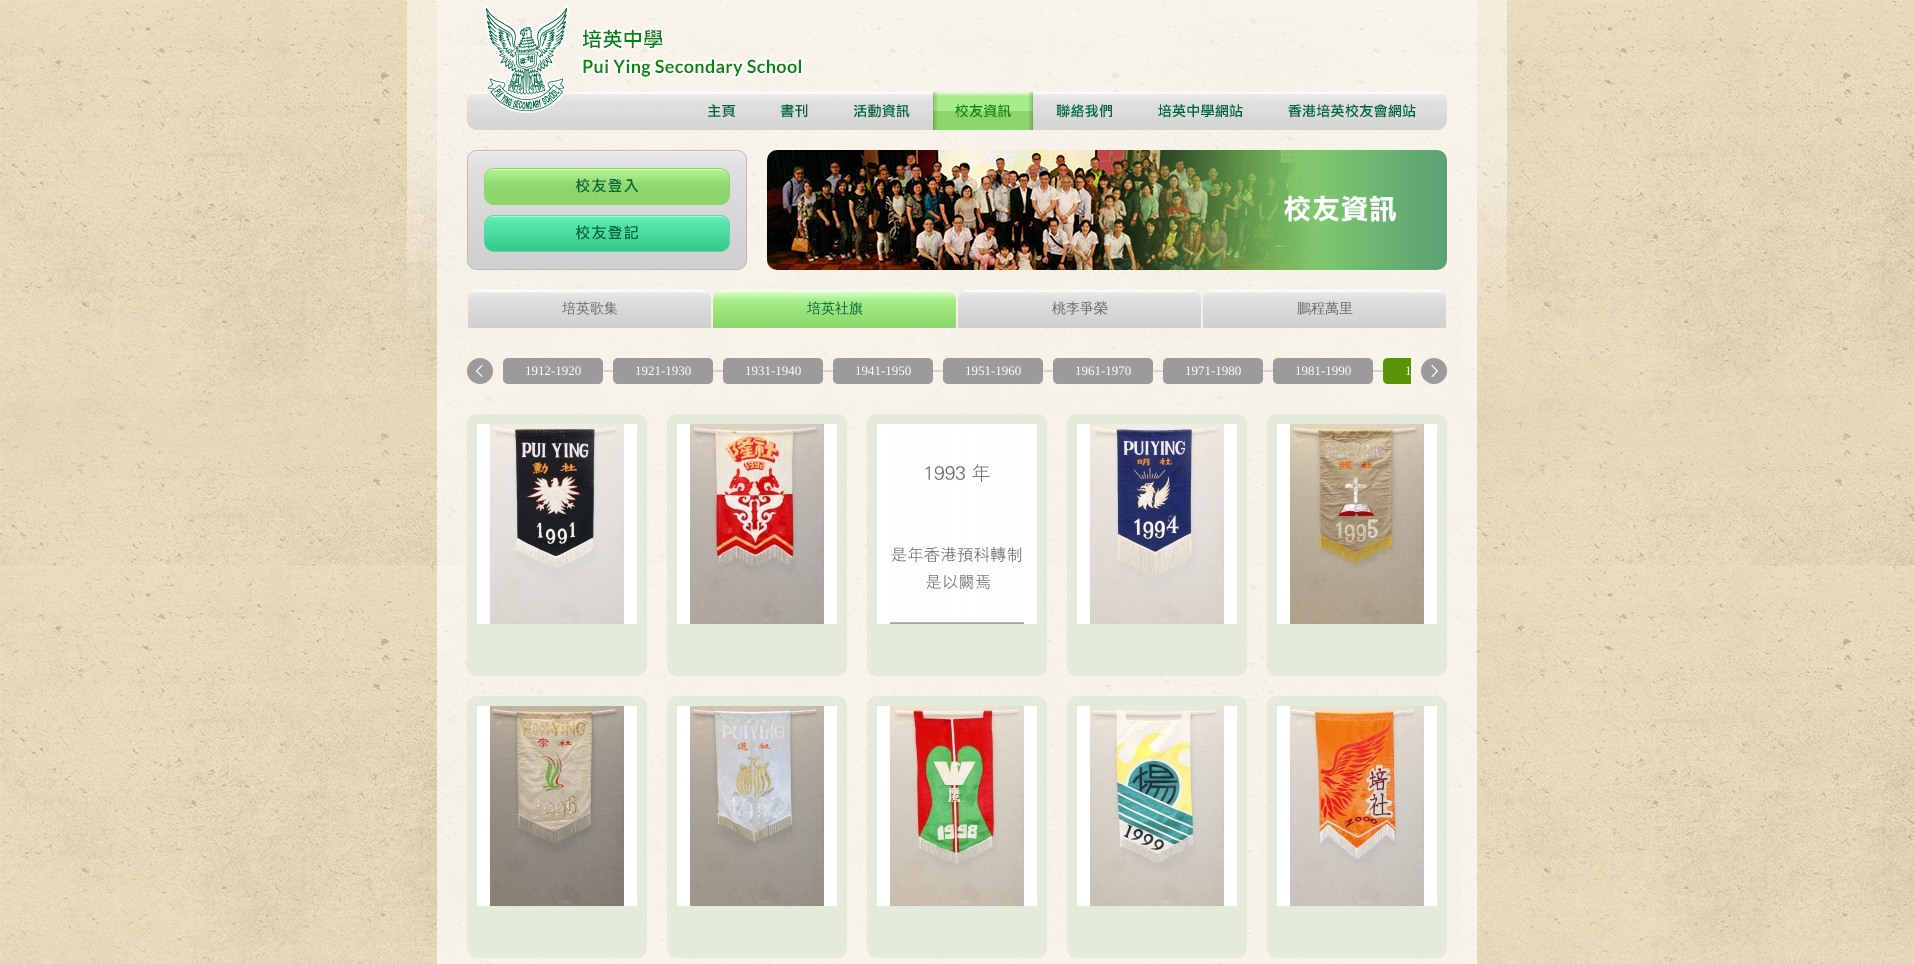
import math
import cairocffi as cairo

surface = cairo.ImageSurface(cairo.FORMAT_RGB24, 1914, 964)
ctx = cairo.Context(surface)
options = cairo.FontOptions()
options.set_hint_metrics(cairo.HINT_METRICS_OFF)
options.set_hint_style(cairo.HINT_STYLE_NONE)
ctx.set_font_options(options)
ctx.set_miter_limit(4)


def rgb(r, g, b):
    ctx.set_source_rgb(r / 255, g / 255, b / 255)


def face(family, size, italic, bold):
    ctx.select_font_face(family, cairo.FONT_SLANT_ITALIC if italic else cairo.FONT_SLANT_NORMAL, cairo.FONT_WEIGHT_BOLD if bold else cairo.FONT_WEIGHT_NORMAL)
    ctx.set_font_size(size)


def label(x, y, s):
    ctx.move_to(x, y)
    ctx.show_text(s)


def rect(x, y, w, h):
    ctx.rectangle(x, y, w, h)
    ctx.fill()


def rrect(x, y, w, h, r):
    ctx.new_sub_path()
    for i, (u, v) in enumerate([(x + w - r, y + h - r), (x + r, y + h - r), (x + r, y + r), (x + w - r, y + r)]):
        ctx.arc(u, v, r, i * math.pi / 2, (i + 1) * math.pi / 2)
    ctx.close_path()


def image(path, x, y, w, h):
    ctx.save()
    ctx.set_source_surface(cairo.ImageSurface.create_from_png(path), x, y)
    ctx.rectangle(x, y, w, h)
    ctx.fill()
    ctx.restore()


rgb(255, 255, 255)
ctx.paint()
image('image0.png', 0, 0, 1914, 964)
ctx.set_source_rgba(1, 1, 1, 0.7)
rect(437, 0, 1040, 964)
image('image1.png', 407, 0, 30, 341)
image('image4.png', 467, 92, 980, 38)
image('image2.png', 484, 6, 85, 107)
image('image3.png', 581, 27, 222, 52)
image('image5.png', 708, 104, 28, 14)
image('image6.png', 780, 104, 28, 14)
image('image7.png', 853, 104, 57, 14)
image('image8.png', 933, 92, 100, 38)
image('image9.png', 1056, 104, 56, 14)
image('image10.png', 1158, 104, 85, 14)
image('image11.png', 1288, 104, 128, 14)
image('image12.png', 1477, 0, 30, 337)
image('image13.png', 467, 150, 280, 120)
image('image14.png', 484, 168, 246, 37)
image('image15.png', 484, 215, 246, 37)
image('image16.png', 767, 150, 680, 120)
image('image17.png', 468, 291, 6, 37)
image('image18.png', 474, 290, 231, 38)
face('WenQuanYi Zen Hei Medium', 14, 0, 0)
rgb(106, 106, 106)
label(562, 313, '培英歌集')
image('image19.png', 705, 291, 6, 37)
image('image20.png', 713, 291, 6, 37)
image('image21.png', 719, 290, 231, 38)
rgb(0, 101, 59)
label(807, 313, '培英社旗')
image('image22.png', 950, 291, 6, 37)
image('image23.png', 958, 291, 6, 37)
image('image18.png', 964, 290, 231, 38)
rgb(106, 106, 106)
label(1052, 313, '桃李爭榮')
image('image24.png', 1195, 291, 6, 37)
image('image25.png', 1203, 291, 6, 37)
image('image18.png', 1209, 290, 231, 38)
label(1297, 313, '鵬程萬里')
image('image26.png', 1440, 291, 6, 37)
image('image27.png', 467, 358, 26, 26)
rgb(211, 211, 211)
rect(603, 370, 780, 2)
rgb(155, 155, 155)
rrect(503, 358, 100, 26, 5)
ctx.fill()
face('Liberation Serif', 13, 0, 0)
rgb(255, 255, 255)
label(525, 375, '1912-1920')
rgb(155, 155, 155)
rrect(613, 358, 100, 26, 5)
ctx.fill()
rgb(255, 255, 255)
label(635, 375, '1921-1930')
rgb(155, 155, 155)
rrect(723, 358, 100, 26, 5)
ctx.fill()
rgb(255, 255, 255)
label(745, 375, '1931-1940')
rgb(155, 155, 155)
rrect(833, 358, 100, 26, 5)
ctx.fill()
rgb(255, 255, 255)
label(855, 375, '1941-1950')
rgb(155, 155, 155)
rrect(943, 358, 100, 26, 5)
ctx.fill()
rgb(255, 255, 255)
label(965, 375, '1951-1960')
rgb(155, 155, 155)
rrect(1053, 358, 100, 26, 5)
ctx.fill()
rgb(255, 255, 255)
label(1075, 375, '1961-1970')
rgb(155, 155, 155)
rrect(1163, 358, 100, 26, 5)
ctx.fill()
rgb(255, 255, 255)
label(1185, 375, '1971-1980')
rgb(155, 155, 155)
rrect(1273, 358, 100, 26, 5)
ctx.fill()
rgb(255, 255, 255)
label(1295, 375, '1981-1990')
rgb(89, 148, 5)
ctx.new_path()
ctx.move_to(1388, 358)
ctx.line_to(1411, 358)
ctx.line_to(1411, 384)
ctx.line_to(1388, 384)
ctx.curve_to(1385, 384, 1383, 382, 1383, 379)
ctx.line_to(1383, 363)
ctx.curve_to(1383, 360, 1385, 358, 1388, 358)
ctx.close_path()
ctx.fill()
rgb(255, 255, 255)
label(1405, 375, '1')
image('image28.png', 1421, 358, 26, 26)
rgb(228, 235, 217)
rrect(467, 414, 180, 262, 10)
ctx.fill()
image('image29.png', 477, 424, 160, 200)
rrect(667, 414, 180, 262, 10)
ctx.fill()
image('image30.png', 677, 424, 160, 200)
rrect(867, 414, 180, 262, 10)
ctx.fill()
image('image31.png', 877, 424, 160, 200)
rrect(1067, 414, 180, 262, 10)
ctx.fill()
image('image32.png', 1077, 424, 160, 200)
rrect(1267, 414, 180, 262, 10)
ctx.fill()
image('image33.png', 1277, 424, 160, 200)
rrect(467, 696, 180, 262, 10)
ctx.fill()
image('image34.png', 477, 706, 160, 200)
rrect(667, 696, 180, 262, 10)
ctx.fill()
image('image35.png', 677, 706, 160, 200)
rrect(867, 696, 180, 262, 10)
ctx.fill()
image('image36.png', 877, 706, 160, 200)
rrect(1067, 696, 180, 262, 10)
ctx.fill()
image('image37.png', 1077, 706, 160, 200)
rrect(1267, 696, 180, 262, 10)
ctx.fill()
image('image38.png', 1277, 706, 160, 200)
surface.write_to_png('render.png')
